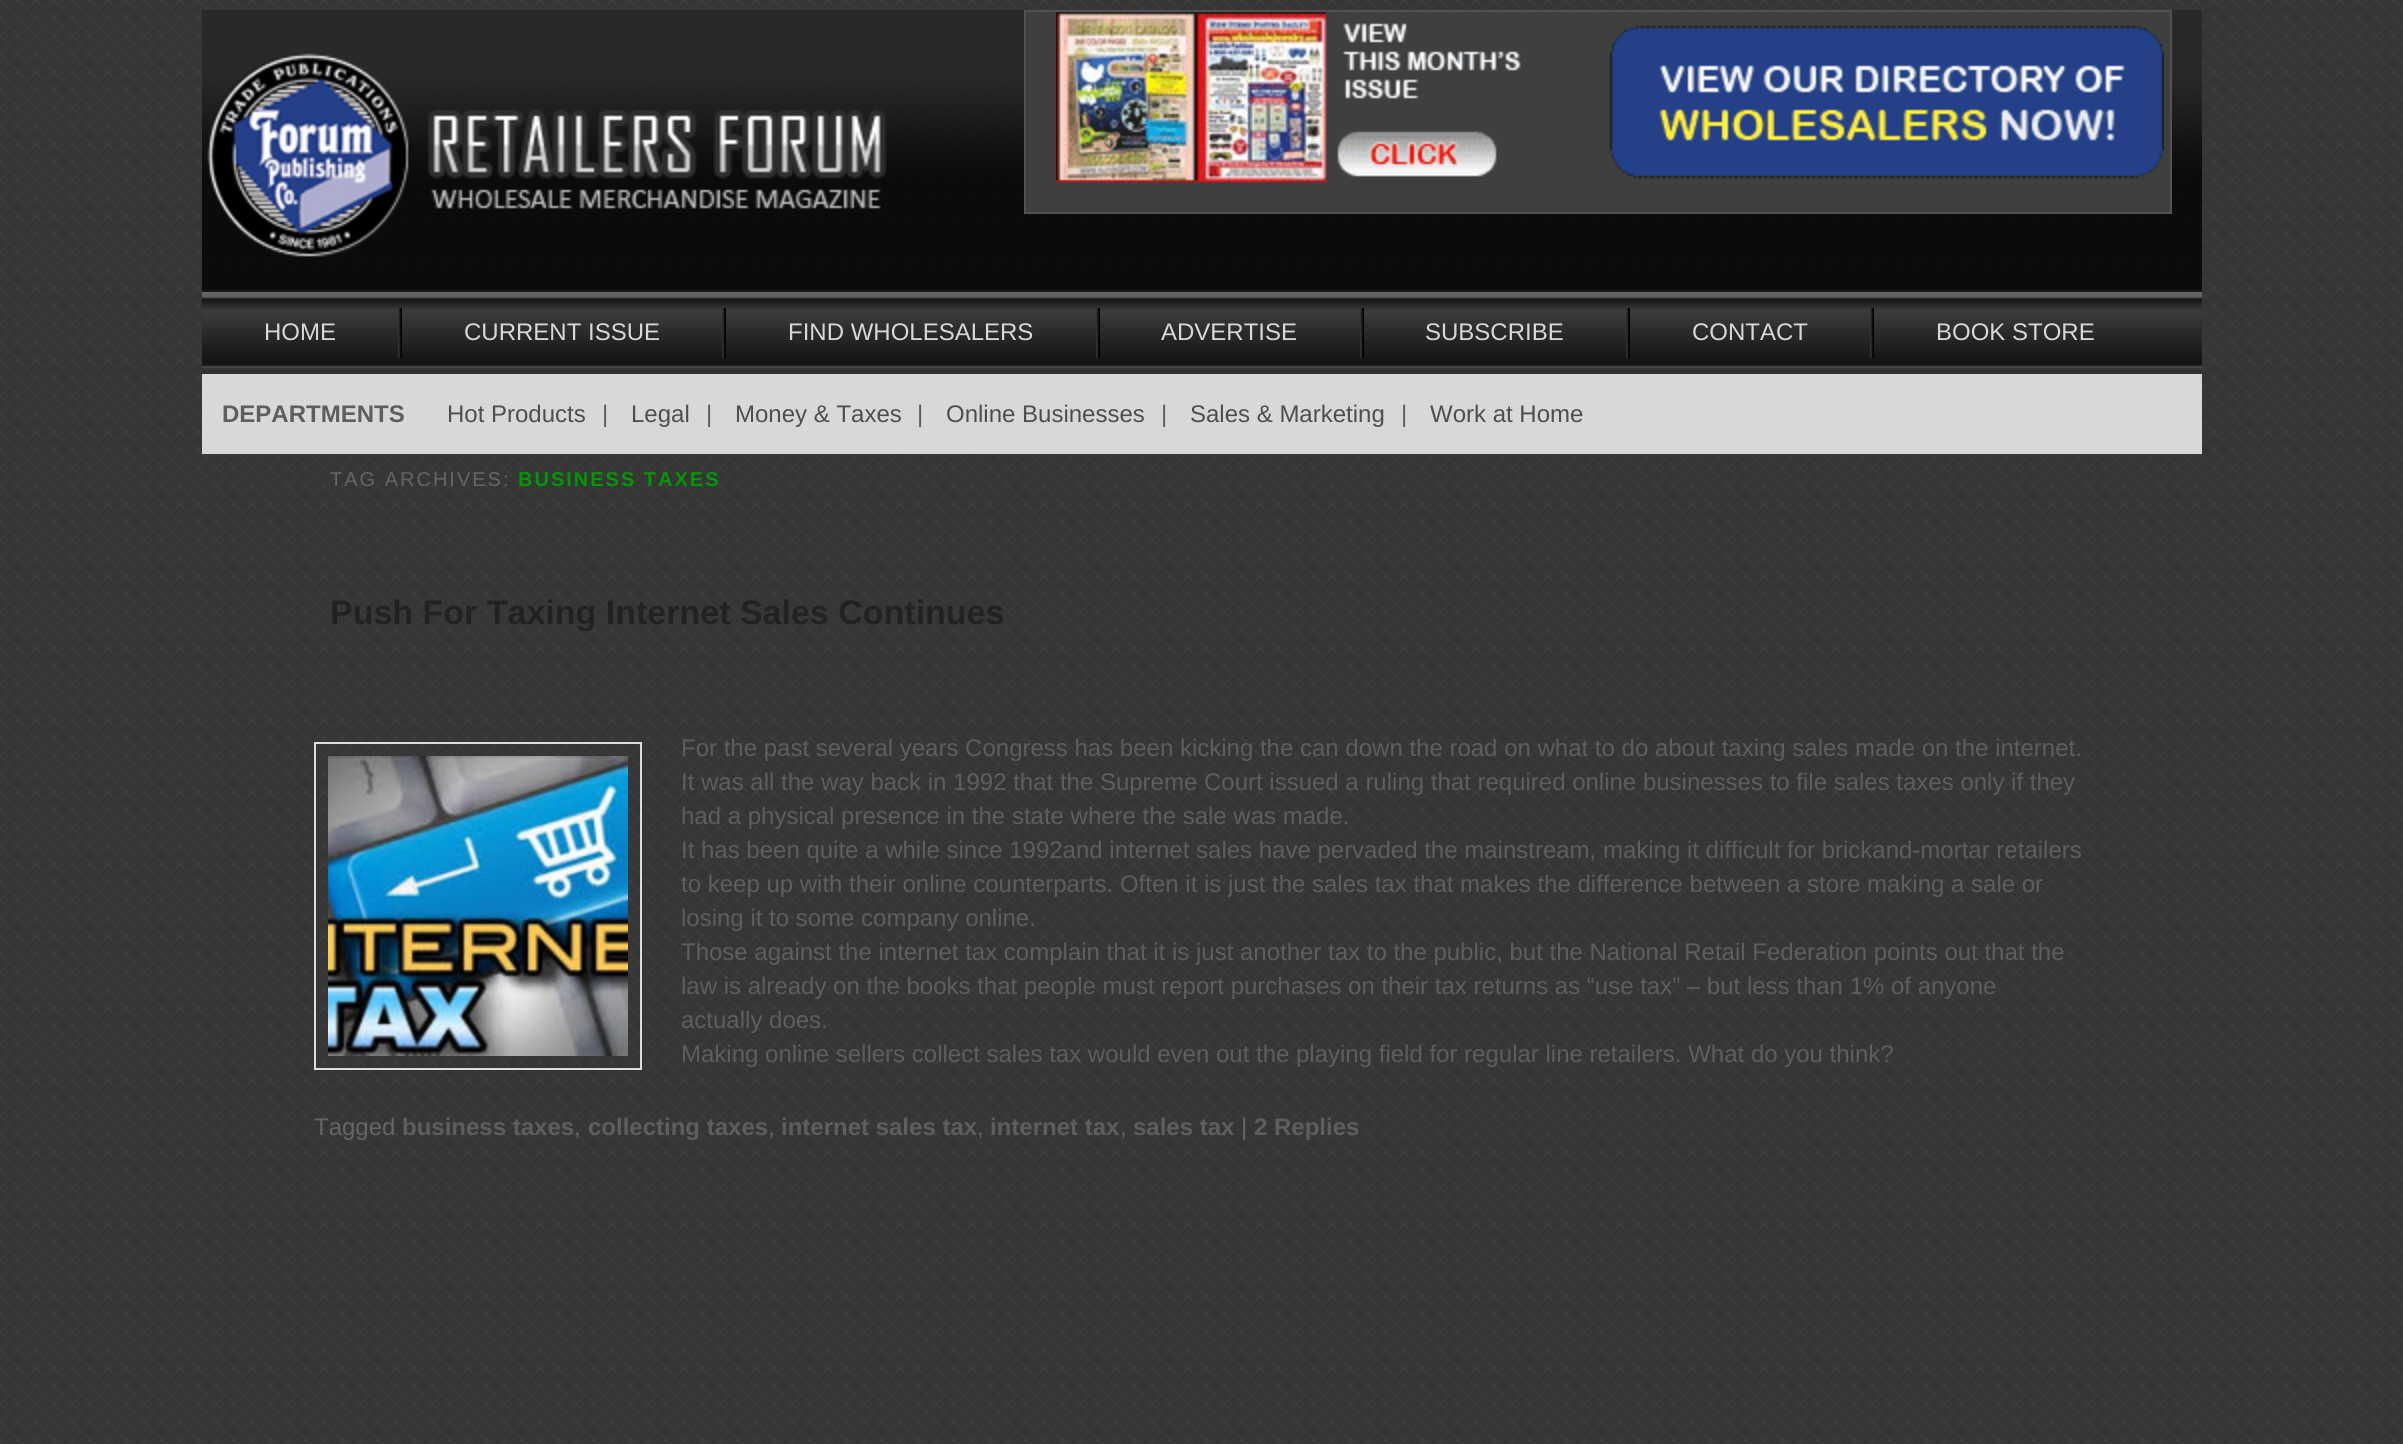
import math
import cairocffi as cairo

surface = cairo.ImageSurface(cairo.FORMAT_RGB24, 2403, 1444)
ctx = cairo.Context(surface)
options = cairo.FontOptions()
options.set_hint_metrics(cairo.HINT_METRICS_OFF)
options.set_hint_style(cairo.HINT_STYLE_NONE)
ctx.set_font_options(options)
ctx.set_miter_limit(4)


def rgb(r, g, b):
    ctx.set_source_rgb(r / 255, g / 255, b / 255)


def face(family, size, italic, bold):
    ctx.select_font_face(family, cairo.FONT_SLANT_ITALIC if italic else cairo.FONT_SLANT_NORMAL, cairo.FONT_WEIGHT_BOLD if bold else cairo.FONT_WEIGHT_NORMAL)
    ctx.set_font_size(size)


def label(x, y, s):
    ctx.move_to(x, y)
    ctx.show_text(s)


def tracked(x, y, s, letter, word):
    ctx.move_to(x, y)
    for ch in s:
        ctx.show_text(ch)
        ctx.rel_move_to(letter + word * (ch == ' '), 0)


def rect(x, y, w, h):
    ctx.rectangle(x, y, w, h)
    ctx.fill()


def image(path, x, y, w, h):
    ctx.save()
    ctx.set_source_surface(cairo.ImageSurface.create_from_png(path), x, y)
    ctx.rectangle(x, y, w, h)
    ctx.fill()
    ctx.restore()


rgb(255, 255, 255)
ctx.paint()
image('image0.png', 0, 0, 2403, 1444)
image('image1.png', 202, 10, 2000, 282)
image('image2.png', 207, 53, 680, 204)
rgb(63, 63, 63)
ctx.rectangle(1025, 11, 1146, 202)
ctx.fill_preserve()
rgb(82, 82, 82)
ctx.stroke()
image('image3.png', 1056, 12, 1108, 171)
image('image4.png', 202, 292, 2000, 82)
face('Liberation Sans', 24, 0, 0)
rgb(216, 216, 216)
label(264, 340, 'HOME')
image('image5.png', 398, 308, 4, 50)
label(464, 340, 'CURRENT ISSUE')
image('image5.png', 722, 308, 4, 50)
label(788, 340, 'FIND WHOLESALERS')
image('image5.png', 1096, 308, 4, 50)
label(1161, 340, 'ADVERTISE')
image('image5.png', 1360, 308, 4, 50)
label(1425, 340, 'SUBSCRIBE')
image('image5.png', 1626, 308, 4, 50)
label(1692, 340, 'CONTACT')
image('image5.png', 1870, 308, 4, 50)
label(1936, 340, 'BOOK STORE')
rect(202, 374, 2000, 80)
face('Liberation Sans', 24, 0, 1)
rgb(94, 94, 94)
label(222, 422, 'DEPARTMENTS')
face('Liberation Sans', 24, 0, 0)
rgb(78, 78, 78)
label(447, 422, 'Hot Products')
rgb(94, 94, 94)
label(602, 422, '|')
rgb(78, 78, 78)
label(631, 422, 'Legal')
rgb(94, 94, 94)
label(706, 422, '|')
rgb(78, 78, 78)
label(735, 422, 'Money & Taxes')
rgb(94, 94, 94)
label(917, 422, '|')
rgb(78, 78, 78)
label(946, 422, 'Online Businesses')
rgb(94, 94, 94)
label(1161, 422, '|')
rgb(78, 78, 78)
label(1190, 422, 'Sales & Marketing')
rgb(94, 94, 94)
label(1401, 422, '|')
rgb(78, 78, 78)
label(1430, 422, 'Work at Home')
face('Liberation Sans', 20, 0, 0)
rgb(102, 102, 102)
tracked(330, 486, 'TAG ARCHIVES:', 2, 0)
face('Liberation Sans', 20, 0, 1)
rgb(0, 153, 0)
tracked(518, 486, 'BUSINESS TAXES', 2, 0)
face('Liberation Sans', 34, 0, 1)
rgb(34, 34, 34)
label(330, 624, 'Push For Taxing Internet Sales Continues')
ctx.rectangle(315, 743, 326, 326)
rgb(221, 221, 221)
ctx.stroke()
image('image6.png', 328, 756, 300, 300)
face('Liberation Sans', 24, 0, 0)
rgb(94, 94, 94)
label(681, 756, 'For the past several years Congress has been kicking the can down the road on what to do about taxing sales made on the internet.')
label(681, 790, 'It was all the way back in 1992 that the Supreme Court issued a ruling that required online businesses to file sales taxes only if they')
label(681, 824, 'had a physical presence in the state where the sale was made.')
label(681, 858, 'It has been quite a while since 1992and internet sales have pervaded the mainstream, making it difficult for brickand-mortar retailers')
label(681, 892, 'to keep up with their online counterparts. Often it is just the sales tax that makes the difference between a store making a sale or')
label(681, 926, 'losing it to some company online.')
label(681, 960, 'Those against the internet tax complain that it is just another tax to the public, but the National Retail Federation points out that the')
label(681, 994, 'law is already on the books that people must report purchases on their tax returns as “use tax” – but less than 1% of anyone')
label(681, 1028, 'actually does.')
label(681, 1062, 'Making online sellers collect sales tax would even out the playing field for regular line retailers. What do you think?')
rgb(102, 102, 102)
label(314, 1135, 'Tagged')
face('Liberation Sans', 24, 0, 1)
rgb(94, 94, 94)
label(402, 1135, 'business taxes')
face('Liberation Sans', 24, 0, 0)
rgb(102, 102, 102)
label(574, 1135, ',')
face('Liberation Sans', 24, 0, 1)
rgb(94, 94, 94)
label(588, 1135, 'collecting taxes')
face('Liberation Sans', 24, 0, 0)
rgb(102, 102, 102)
label(768, 1135, ',')
face('Liberation Sans', 24, 0, 1)
rgb(94, 94, 94)
label(781, 1135, 'internet sales tax')
face('Liberation Sans', 24, 0, 0)
rgb(102, 102, 102)
label(977, 1135, ',')
face('Liberation Sans', 24, 0, 1)
rgb(94, 94, 94)
label(990, 1135, 'internet tax')
face('Liberation Sans', 24, 0, 0)
rgb(102, 102, 102)
label(1120, 1135, ',')
face('Liberation Sans', 24, 0, 1)
rgb(94, 94, 94)
label(1133, 1135, 'sales tax')
face('Liberation Sans', 24, 0, 0)
rgb(102, 102, 102)
label(1241, 1135, '|')
face('Liberation Sans', 24, 0, 1)
rgb(94, 94, 94)
label(1254, 1135, '2 Replies')
surface.write_to_png('render.png')
